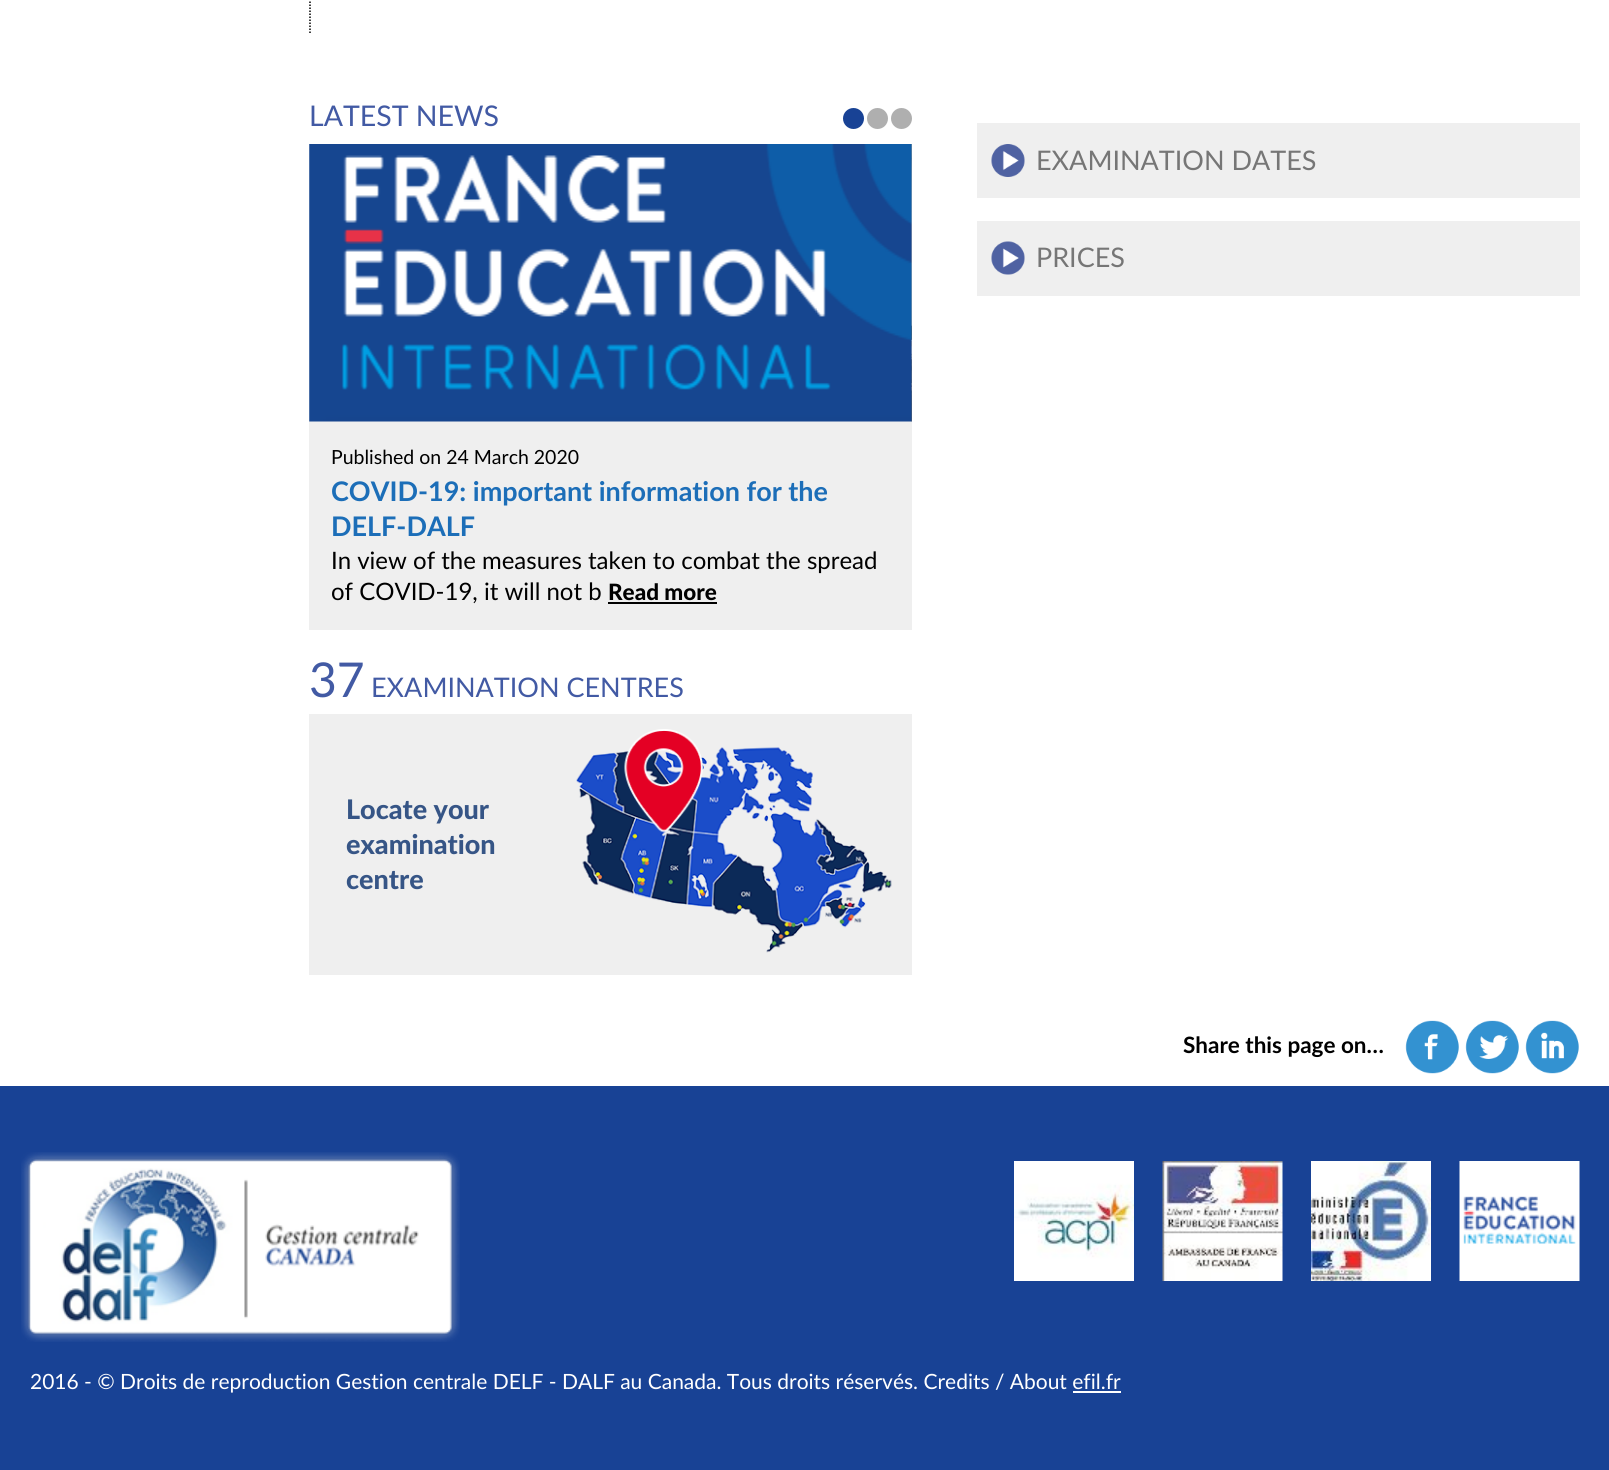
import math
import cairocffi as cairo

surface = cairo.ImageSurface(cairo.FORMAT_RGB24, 1609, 1470)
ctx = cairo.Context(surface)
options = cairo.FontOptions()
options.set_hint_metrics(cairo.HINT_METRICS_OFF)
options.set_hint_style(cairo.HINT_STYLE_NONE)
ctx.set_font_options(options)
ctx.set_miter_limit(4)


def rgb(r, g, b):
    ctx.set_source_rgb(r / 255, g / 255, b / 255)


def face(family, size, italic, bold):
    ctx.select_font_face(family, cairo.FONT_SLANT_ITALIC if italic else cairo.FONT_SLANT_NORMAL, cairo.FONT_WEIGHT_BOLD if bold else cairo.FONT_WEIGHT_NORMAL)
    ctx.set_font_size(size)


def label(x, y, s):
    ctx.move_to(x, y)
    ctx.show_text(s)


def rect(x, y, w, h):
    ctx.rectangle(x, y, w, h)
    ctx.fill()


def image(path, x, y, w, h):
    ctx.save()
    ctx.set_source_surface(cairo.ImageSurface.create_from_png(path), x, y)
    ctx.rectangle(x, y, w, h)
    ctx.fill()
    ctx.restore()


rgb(24, 66, 149)
ctx.paint()
rgb(255, 255, 255)
rect(0, 0, 1609, 1086)
ctx.new_path()
ctx.move_to(310, -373.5)
ctx.line_to(310, 33)
rgb(0, 0, 0)
ctx.set_line_width(1.5)
ctx.set_dash([1.5, 1.5])
ctx.stroke()
face('Lato', 28.5, 0, 0)
rgb(66, 90, 164)
label(309, 126, 'LATEST NEWS')
rgb(239, 239, 239)
rect(309, 144, 603, 486)
rgb(24, 66, 149)
ctx.new_path()
ctx.arc(853.5, 118.5, 10.5, 0, 2 * math.pi)
ctx.fill()
rgb(175, 175, 175)
ctx.arc(877.5, 118.5, 10.5, 0, 2 * math.pi)
ctx.fill()
ctx.arc(901.5, 118.5, 10.5, 0, 2 * math.pi)
ctx.fill()
image('image1.png', 309, 144, 603, 278)
image('image0.png', 911, 144, 1, 278)
face('Lato', 19.5, 0, 0)
rgb(0, 0, 0)
label(331, 464, 'Published on 24 March 2020')
face('Lato', 27, 0, 1)
rgb(28, 110, 184)
label(331, 501, 'COVID-19: important information for the')
label(331, 536, 'DELF-DALF')
face('Lato', 24, 0, 0)
rgb(0, 0, 0)
label(331, 569, 'In view of the measures taken to combat the spread')
label(331, 600, 'of COVID-19, it will not b')
face('Lato Black', 22.5, 0, 0)
label(608, 600, 'Read more')
rect(608, 602, 109, 2)
rgb(239, 239, 239)
rect(977, 123, 603, 75)
image('image2.png', 991, 144, 34, 33)
face('Lato', 27, 0, 0)
rgb(118, 118, 118)
label(1036, 170, 'EXAMINATION DATES')
rgb(239, 239, 239)
rect(977, 221, 603, 75)
image('image3.png', 991, 241, 34, 34)
rgb(118, 118, 118)
label(1036, 267, 'PRICES')
face('Lato', 48, 0, 0)
rgb(66, 90, 164)
label(309, 697, '37')
face('Lato', 27, 0, 0)
label(371, 697, 'EXAMINATION CENTRES')
rgb(239, 239, 239)
rect(309, 714, 603, 261)
face('Lato Black', 27, 0, 0)
rgb(54, 85, 134)
label(346, 819, 'Locate your')
label(346, 854, 'examination')
label(346, 889, 'centre')
image('image4.png', 576, 729, 316, 224)
face('Lato', 22.5, 0, 1)
rgb(0, 0, 0)
label(1183, 1053, 'Share this page on…')
image('image5.png', 1405, 1020, 54, 54)
image('image6.png', 1465, 1020, 54, 54)
image('image7.png', 1525, 1020, 54, 54)
image('image8.png', 21, 1152, 439, 190)
image('image9.png', 1014, 1161, 120, 120)
image('image10.png', 1162, 1161, 121, 120)
image('image11.png', 1311, 1161, 120, 120)
image('image12.png', 1459, 1161, 121, 120)
face('Lato', 21, 0, 0)
rgb(255, 255, 255)
label(30, 1389, '2016 - © Droits de reproduction Gestion centrale DELF - DALF au Canada. Tous droits réservés. Credits / About efil.fr')
rect(1073, 1391, 48, 2)
surface.write_to_png('render.png')
